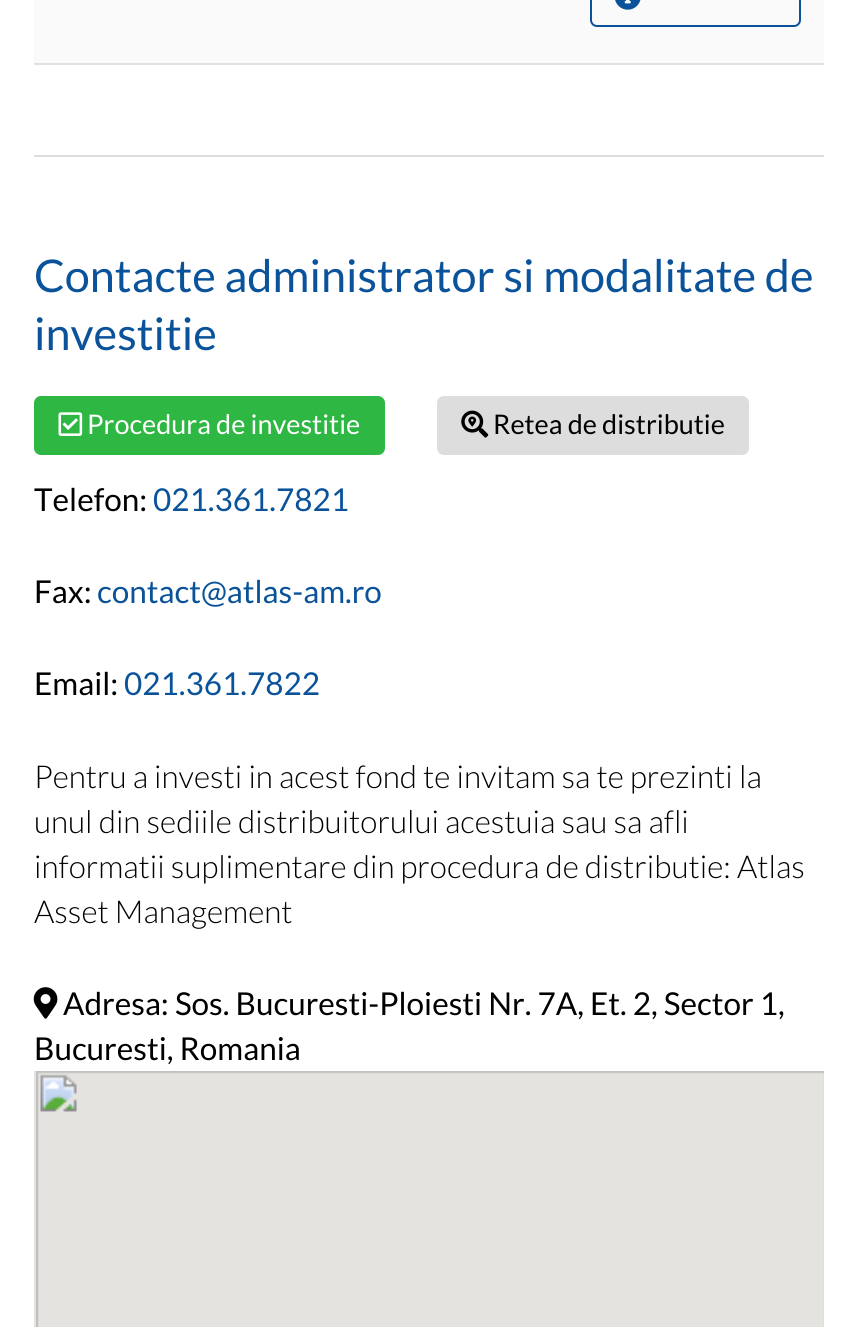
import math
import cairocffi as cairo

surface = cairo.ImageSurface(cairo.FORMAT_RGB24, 857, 1327)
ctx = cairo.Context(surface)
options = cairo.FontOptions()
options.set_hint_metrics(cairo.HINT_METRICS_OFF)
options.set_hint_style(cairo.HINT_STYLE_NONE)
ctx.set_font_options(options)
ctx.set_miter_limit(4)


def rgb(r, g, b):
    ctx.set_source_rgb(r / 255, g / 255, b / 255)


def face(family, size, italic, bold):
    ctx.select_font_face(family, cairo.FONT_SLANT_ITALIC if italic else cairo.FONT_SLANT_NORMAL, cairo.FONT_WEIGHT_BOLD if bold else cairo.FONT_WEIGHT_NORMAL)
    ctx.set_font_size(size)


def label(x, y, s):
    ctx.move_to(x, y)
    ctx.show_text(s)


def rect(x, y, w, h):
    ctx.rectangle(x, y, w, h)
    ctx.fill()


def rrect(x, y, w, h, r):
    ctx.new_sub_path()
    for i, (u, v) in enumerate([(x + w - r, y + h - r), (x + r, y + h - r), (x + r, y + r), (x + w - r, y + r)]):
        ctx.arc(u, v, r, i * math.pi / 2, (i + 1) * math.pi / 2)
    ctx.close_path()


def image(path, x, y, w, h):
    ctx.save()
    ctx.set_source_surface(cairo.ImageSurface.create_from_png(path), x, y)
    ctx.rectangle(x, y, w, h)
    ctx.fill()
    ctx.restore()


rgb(255, 255, 255)
ctx.paint()
rgb(221, 221, 221)
rect(34, 155, 790, 2)
rgb(250, 250, 251)
rect(34, 0, 790, 63)
rgb(225, 225, 226)
rect(34, 63, 790, 2)
rrect(591, -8, 209, 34, 6)
rgb(10, 83, 154)
ctx.stroke()
image('image0.png', 615, 0, 26, 10)
face('Lato', 45, 0, 0)
label(34, 292, 'Contacte administrator si modalitate de')
label(34, 350, 'investitie')
rgb(47, 183, 68)
rrect(35, 397, 349, 57, 6)
ctx.fill_preserve()
ctx.stroke()
image('image1.png', 58, 412, 25, 24)
face('Lato', 27, 0, 0)
rgb(255, 255, 255)
label(87, 434, 'Procedura de investitie')
rgb(221, 221, 221)
rrect(438, 397, 310, 57, 6)
ctx.fill_preserve()
ctx.stroke()
image('image2.png', 461, 410, 28, 28)
rgb(0, 0, 0)
label(493, 434, 'Retea de distributie')
face('Lato', 31.5, 0, 0)
label(34, 511, 'Telefon:')
rgb(10, 83, 154)
label(153, 511, '021.361.7821')
rgb(0, 0, 0)
label(34, 603, 'Fax:')
rgb(10, 83, 154)
label(97, 603, 'contact@atlas-am.ro')
rgb(0, 0, 0)
label(34, 695, 'Email:')
rgb(10, 83, 154)
label(124, 695, '021.361.7822')
face('Lato Light', 31.5, 0, 0)
rgb(0, 0, 0)
label(34, 788, 'Pentru a investi in acest fond te invitam sa te prezinti la')
label(34, 833, 'unul din sediile distribuitorului acestuia sau sa afli')
label(34, 878, 'informatii suplimentare din procedura de distributie: Atlas')
label(34, 923, 'Asset Management')
image('image3.png', 33, 987, 25, 32)
face('Lato', 31.5, 0, 0)
label(63, 1015, 'Adresa: Sos. Bucuresti-Ploiesti Nr. 7A, Et. 2, Sector 1,')
label(34, 1060, 'Bucuresti, Romania')
image('image4.png', 34, 1071, 790, 256)
surface.write_to_png('render.png')
